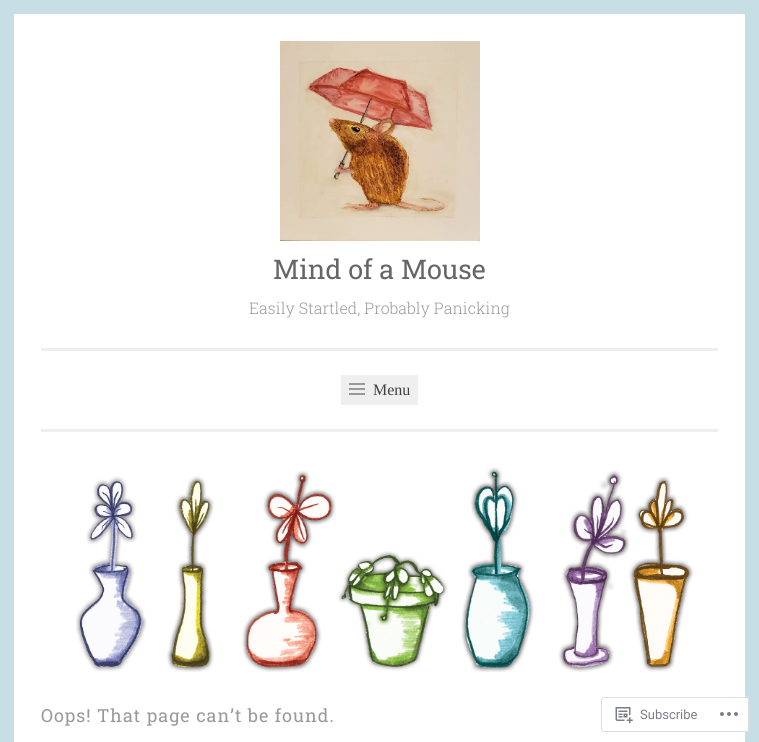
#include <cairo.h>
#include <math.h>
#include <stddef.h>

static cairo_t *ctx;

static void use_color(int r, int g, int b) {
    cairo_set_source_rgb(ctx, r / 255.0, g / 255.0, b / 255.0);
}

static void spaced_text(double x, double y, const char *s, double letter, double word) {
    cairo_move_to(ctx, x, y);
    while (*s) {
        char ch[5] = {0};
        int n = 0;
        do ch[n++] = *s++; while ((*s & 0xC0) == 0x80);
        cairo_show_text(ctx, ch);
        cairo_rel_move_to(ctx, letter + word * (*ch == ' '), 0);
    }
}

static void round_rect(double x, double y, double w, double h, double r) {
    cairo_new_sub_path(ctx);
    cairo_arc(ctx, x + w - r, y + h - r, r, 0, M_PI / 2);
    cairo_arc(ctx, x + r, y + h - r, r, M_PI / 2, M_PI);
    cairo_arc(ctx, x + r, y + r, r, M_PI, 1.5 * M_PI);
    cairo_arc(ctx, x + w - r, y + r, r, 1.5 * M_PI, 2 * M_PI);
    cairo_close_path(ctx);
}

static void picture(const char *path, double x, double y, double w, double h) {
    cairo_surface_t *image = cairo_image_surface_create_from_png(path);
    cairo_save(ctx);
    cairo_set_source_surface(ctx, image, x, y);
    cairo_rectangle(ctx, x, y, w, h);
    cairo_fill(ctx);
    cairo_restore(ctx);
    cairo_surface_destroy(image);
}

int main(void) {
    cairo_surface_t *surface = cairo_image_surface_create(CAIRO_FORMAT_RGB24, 759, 742);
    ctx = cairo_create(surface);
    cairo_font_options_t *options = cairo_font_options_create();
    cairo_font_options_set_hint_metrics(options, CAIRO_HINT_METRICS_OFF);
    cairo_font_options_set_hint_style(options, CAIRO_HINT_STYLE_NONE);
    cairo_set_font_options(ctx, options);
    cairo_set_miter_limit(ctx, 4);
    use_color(200, 222, 229);
    cairo_paint(ctx);
    use_color(255, 255, 255);
    cairo_rectangle(ctx, 14, 14, 731, 728);
    cairo_fill(ctx);
    use_color(238, 238, 238);
    cairo_rectangle(ctx, 41, 429, 677, 3);
    cairo_fill(ctx);
    picture("img1.png", 280, 41, 200, 200);
    cairo_select_font_face(ctx, "Roboto Slab", CAIRO_FONT_SLANT_NORMAL, CAIRO_FONT_WEIGHT_NORMAL);
    cairo_set_font_size(ctx, 27);
    use_color(102, 102, 102);
    cairo_move_to(ctx, 273, 279);
    cairo_show_text(ctx, "Mind of a Mouse");
    cairo_select_font_face(ctx, "Roboto Slab Light", CAIRO_FONT_SLANT_NORMAL, CAIRO_FONT_WEIGHT_NORMAL);
    cairo_set_font_size(ctx, 16);
    use_color(153, 153, 153);
    cairo_move_to(ctx, 249, 314);
    cairo_show_text(ctx, "Easily Startled, Probably Panicking");
    use_color(238, 238, 238);
    cairo_rectangle(ctx, 41, 348, 677, 3);
    cairo_fill(ctx);
    use_color(239, 239, 239);
    cairo_rectangle(ctx, 341, 375, 77, 30);
    cairo_fill(ctx);
    picture("img2.png", 349, 383, 16, 12);
    cairo_select_font_face(ctx, "Liberation Serif", CAIRO_FONT_SLANT_NORMAL, CAIRO_FONT_WEIGHT_NORMAL);
    use_color(64, 64, 64);
    cairo_move_to(ctx, 373, 395);
    cairo_show_text(ctx, "Menu");
    picture("img3.png", 76, 467, 618, 205);
    cairo_select_font_face(ctx, "Roboto Slab", CAIRO_FONT_SLANT_NORMAL, CAIRO_FONT_WEIGHT_NORMAL);
    cairo_set_font_size(ctx, 18);
    use_color(153, 153, 153);
    spaced_text(41, 722, "Oops! That page can’t be found.", 1, 0);
    cairo_set_source_rgba(ctx, 1, 1, 1, 0.98);
    round_rect(601, 697, 148, 35, 3);
    cairo_fill(ctx);
    round_rect(601.5, 697.5, 147, 34, 2.5);
    cairo_set_source_rgba(ctx, 0.863, 0.863, 0.871, 0.98);
    cairo_set_line_width(ctx, 1);
    cairo_stroke(ctx);
    picture("img4.png", 615, 707, 18, 17);
    cairo_select_font_face(ctx, "Roboto", CAIRO_FONT_SLANT_NORMAL, CAIRO_FONT_WEIGHT_NORMAL);
    cairo_set_font_size(ctx, 13);
    use_color(123, 127, 133);
    cairo_move_to(ctx, 640, 719);
    cairo_show_text(ctx, "Subscribe");
    picture("img5.png", 720, 712, 18, 4);
    cairo_surface_write_to_png(surface, "result.png");
    cairo_font_options_destroy(options);
    cairo_destroy(ctx);
    cairo_surface_destroy(surface);
    return 0;
}
